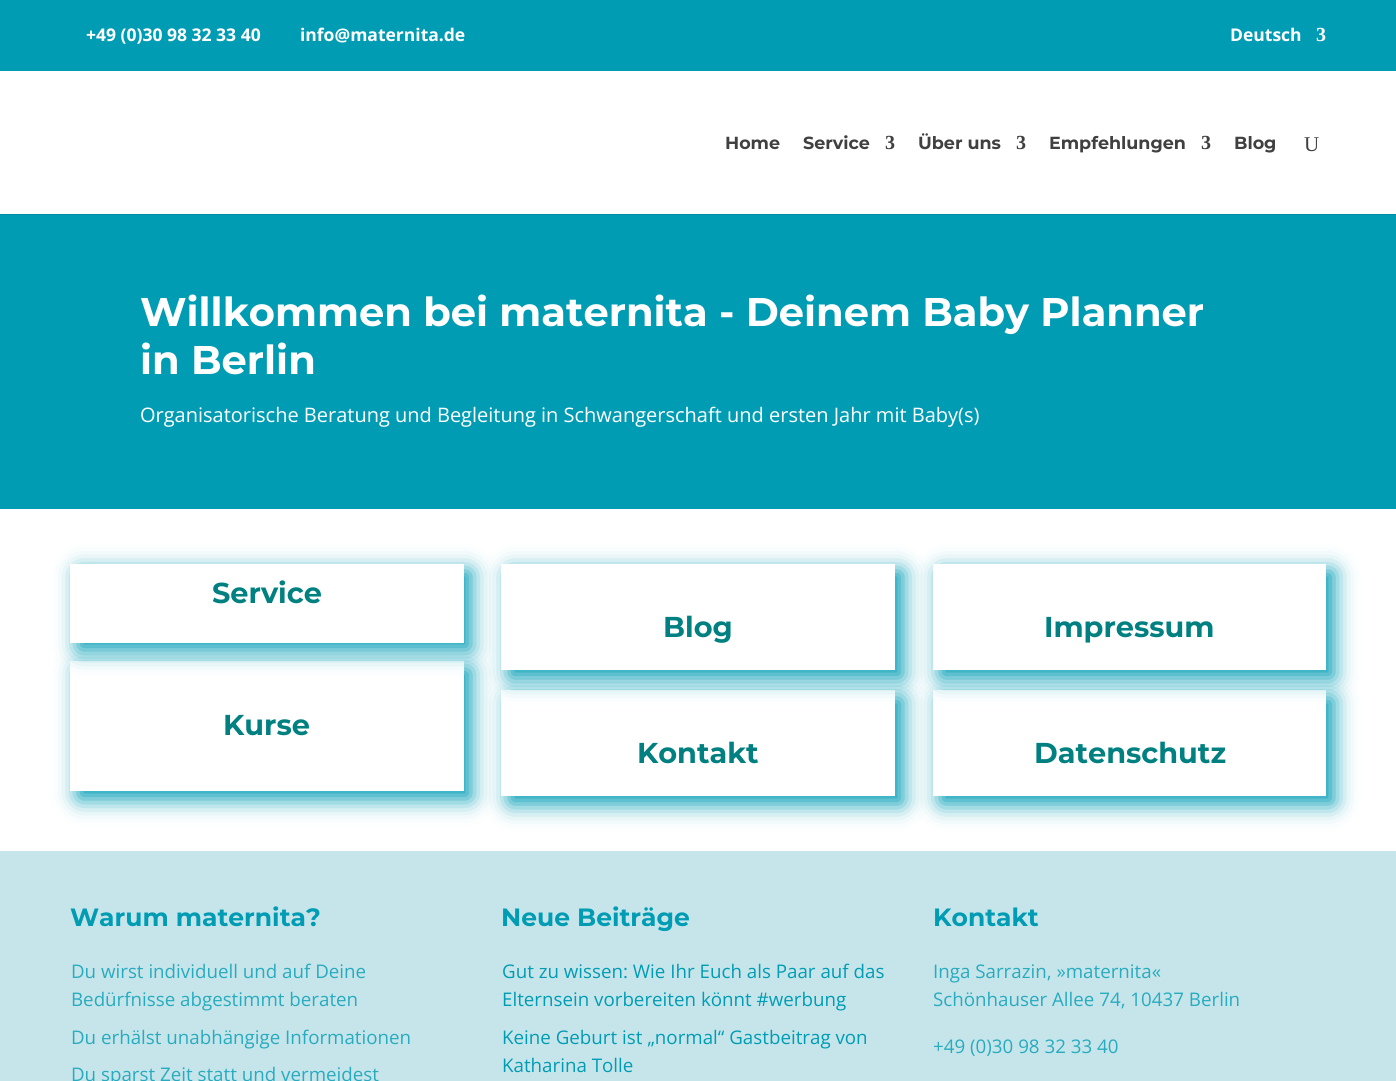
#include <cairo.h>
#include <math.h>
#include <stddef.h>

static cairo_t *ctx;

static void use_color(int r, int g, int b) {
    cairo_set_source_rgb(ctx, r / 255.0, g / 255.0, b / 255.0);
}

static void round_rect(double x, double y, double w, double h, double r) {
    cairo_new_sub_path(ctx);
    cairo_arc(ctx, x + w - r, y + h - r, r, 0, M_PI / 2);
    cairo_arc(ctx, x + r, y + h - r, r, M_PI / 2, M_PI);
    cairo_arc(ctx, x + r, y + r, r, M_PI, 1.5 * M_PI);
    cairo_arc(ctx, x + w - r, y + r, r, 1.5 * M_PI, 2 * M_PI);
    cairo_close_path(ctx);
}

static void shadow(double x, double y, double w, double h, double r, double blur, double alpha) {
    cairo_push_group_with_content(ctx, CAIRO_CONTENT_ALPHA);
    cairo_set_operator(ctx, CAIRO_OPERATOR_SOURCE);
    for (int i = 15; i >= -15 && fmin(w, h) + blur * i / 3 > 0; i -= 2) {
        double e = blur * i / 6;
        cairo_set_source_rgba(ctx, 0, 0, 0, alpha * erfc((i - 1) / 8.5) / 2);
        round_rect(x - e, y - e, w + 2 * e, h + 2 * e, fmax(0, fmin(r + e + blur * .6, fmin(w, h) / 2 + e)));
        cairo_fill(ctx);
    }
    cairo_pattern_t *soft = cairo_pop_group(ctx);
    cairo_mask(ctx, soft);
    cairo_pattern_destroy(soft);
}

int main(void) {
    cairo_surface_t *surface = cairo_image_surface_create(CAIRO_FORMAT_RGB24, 1396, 1081);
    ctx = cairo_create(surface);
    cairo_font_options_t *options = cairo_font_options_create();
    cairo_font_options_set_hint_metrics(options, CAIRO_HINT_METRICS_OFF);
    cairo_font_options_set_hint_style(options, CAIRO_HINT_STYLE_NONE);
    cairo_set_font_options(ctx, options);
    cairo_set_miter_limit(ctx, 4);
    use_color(0, 156, 180);
    cairo_paint(ctx);
    cairo_select_font_face(ctx, "Open Sans", CAIRO_FONT_SLANT_NORMAL, CAIRO_FONT_WEIGHT_BOLD);
    cairo_set_font_size(ctx, 17.5);
    use_color(255, 255, 255);
    cairo_move_to(ctx, 86, 41);
    cairo_show_text(ctx, "+49 (0)30 98 32 33 40");
    cairo_move_to(ctx, 300, 41);
    cairo_show_text(ctx, "info@maternita.de");
    cairo_move_to(ctx, 1230, 41);
    cairo_show_text(ctx, "Deutsch");
    cairo_select_font_face(ctx, "Liberation Serif", CAIRO_FONT_SLANT_NORMAL, CAIRO_FONT_WEIGHT_BOLD);
    cairo_set_font_size(ctx, 20);
    cairo_move_to(ctx, 1316, 41);
    cairo_show_text(ctx, "3");
    use_color(0, 140, 162);
    cairo_rectangle(ctx, 0, 214, 1396, 1);
    cairo_fill(ctx);
    use_color(255, 255, 255);
    cairo_rectangle(ctx, 0, 71, 1396, 143);
    cairo_fill(ctx);
    cairo_select_font_face(ctx, "Montserrat", CAIRO_FONT_SLANT_NORMAL, CAIRO_FONT_WEIGHT_BOLD);
    cairo_set_font_size(ctx, 17.5);
    use_color(64, 64, 64);
    cairo_move_to(ctx, 725, 149);
    cairo_show_text(ctx, "Home");
    cairo_move_to(ctx, 803, 149);
    cairo_show_text(ctx, "Service");
    cairo_select_font_face(ctx, "Liberation Serif", CAIRO_FONT_SLANT_NORMAL, CAIRO_FONT_WEIGHT_BOLD);
    cairo_set_font_size(ctx, 20);
    cairo_move_to(ctx, 885, 149);
    cairo_show_text(ctx, "3");
    cairo_select_font_face(ctx, "Montserrat", CAIRO_FONT_SLANT_NORMAL, CAIRO_FONT_WEIGHT_BOLD);
    cairo_set_font_size(ctx, 17.5);
    cairo_move_to(ctx, 918, 149);
    cairo_show_text(ctx, "Über uns");
    cairo_select_font_face(ctx, "Liberation Serif", CAIRO_FONT_SLANT_NORMAL, CAIRO_FONT_WEIGHT_BOLD);
    cairo_set_font_size(ctx, 20);
    cairo_move_to(ctx, 1016, 149);
    cairo_show_text(ctx, "3");
    cairo_select_font_face(ctx, "Montserrat", CAIRO_FONT_SLANT_NORMAL, CAIRO_FONT_WEIGHT_BOLD);
    cairo_set_font_size(ctx, 17.5);
    cairo_move_to(ctx, 1049, 149);
    cairo_show_text(ctx, "Empfehlungen");
    cairo_select_font_face(ctx, "Liberation Serif", CAIRO_FONT_SLANT_NORMAL, CAIRO_FONT_WEIGHT_BOLD);
    cairo_set_font_size(ctx, 20);
    cairo_move_to(ctx, 1201, 149);
    cairo_show_text(ctx, "3");
    cairo_select_font_face(ctx, "Montserrat", CAIRO_FONT_SLANT_NORMAL, CAIRO_FONT_WEIGHT_BOLD);
    cairo_set_font_size(ctx, 17.5);
    cairo_move_to(ctx, 1234, 149);
    cairo_show_text(ctx, "Blog");
    cairo_select_font_face(ctx, "Liberation Serif", CAIRO_FONT_SLANT_NORMAL, CAIRO_FONT_WEIGHT_NORMAL);
    cairo_set_font_size(ctx, 21);
    cairo_move_to(ctx, 1304, 151);
    cairo_show_text(ctx, "U");
    cairo_select_font_face(ctx, "Montserrat", CAIRO_FONT_SLANT_NORMAL, CAIRO_FONT_WEIGHT_BOLD);
    cairo_set_font_size(ctx, 40);
    use_color(255, 255, 255);
    cairo_move_to(ctx, 140, 326);
    cairo_show_text(ctx, "Willkommen bei maternita - Deinem Baby Planner");
    cairo_move_to(ctx, 140, 374);
    cairo_show_text(ctx, "in Berlin");
    cairo_select_font_face(ctx, "Open Sans", CAIRO_FONT_SLANT_NORMAL, CAIRO_FONT_WEIGHT_NORMAL);
    cairo_set_font_size(ctx, 20);
    cairo_move_to(ctx, 140, 422);
    cairo_show_text(ctx, "Organisatorische Beratung und Begleitung in Schwangerschaft und ersten Jahr mit Baby(s)");
    cairo_rectangle(ctx, 0, 509, 1396, 342);
    cairo_fill(ctx);
    cairo_save(ctx);
    cairo_set_fill_rule(ctx, CAIRO_FILL_RULE_EVEN_ODD);
    cairo_new_path(ctx);
    cairo_move_to(ctx, 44, 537);
    cairo_line_to(ctx, 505, 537);
    cairo_line_to(ctx, 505, 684);
    cairo_line_to(ctx, 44, 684);
    cairo_close_path(ctx);
    cairo_move_to(ctx, 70, 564);
    cairo_line_to(ctx, 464, 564);
    cairo_line_to(ctx, 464, 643);
    cairo_line_to(ctx, 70, 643);
    cairo_close_path(ctx);
    cairo_clip(ctx);
    use_color(0, 156, 180);
    shadow(78, 571, 393, 79, 0, 11, 1);
    cairo_restore(ctx);
    cairo_select_font_face(ctx, "Montserrat", CAIRO_FONT_SLANT_NORMAL, CAIRO_FONT_WEIGHT_BOLD);
    cairo_set_font_size(ctx, 28.75);
    use_color(0, 128, 128);
    cairo_move_to(ctx, 212, 603);
    cairo_show_text(ctx, "Service");
    cairo_save(ctx);
    cairo_set_fill_rule(ctx, CAIRO_FILL_RULE_EVEN_ODD);
    cairo_new_path(ctx);
    cairo_move_to(ctx, 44, 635);
    cairo_line_to(ctx, 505, 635);
    cairo_line_to(ctx, 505, 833);
    cairo_line_to(ctx, 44, 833);
    cairo_close_path(ctx);
    cairo_move_to(ctx, 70, 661);
    cairo_line_to(ctx, 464, 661);
    cairo_line_to(ctx, 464, 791);
    cairo_line_to(ctx, 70, 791);
    cairo_close_path(ctx);
    cairo_clip(ctx);
    use_color(0, 156, 180);
    shadow(78, 669, 393, 130, 0, 11, 1);
    cairo_restore(ctx);
    cairo_move_to(ctx, 223, 735);
    cairo_show_text(ctx, "Kurse");
    cairo_save(ctx);
    cairo_set_fill_rule(ctx, CAIRO_FILL_RULE_EVEN_ODD);
    cairo_new_path(ctx);
    cairo_move_to(ctx, 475, 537);
    cairo_line_to(ctx, 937, 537);
    cairo_line_to(ctx, 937, 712);
    cairo_line_to(ctx, 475, 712);
    cairo_close_path(ctx);
    cairo_move_to(ctx, 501, 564);
    cairo_line_to(ctx, 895, 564);
    cairo_line_to(ctx, 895, 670);
    cairo_line_to(ctx, 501, 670);
    cairo_close_path(ctx);
    cairo_clip(ctx);
    use_color(0, 156, 180);
    shadow(509, 571, 394, 107, 0, 11, 1);
    cairo_restore(ctx);
    cairo_move_to(ctx, 663, 637);
    cairo_show_text(ctx, "Blog");
    cairo_save(ctx);
    cairo_set_fill_rule(ctx, CAIRO_FILL_RULE_EVEN_ODD);
    cairo_new_path(ctx);
    cairo_move_to(ctx, 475, 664);
    cairo_line_to(ctx, 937, 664);
    cairo_line_to(ctx, 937, 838);
    cairo_line_to(ctx, 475, 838);
    cairo_close_path(ctx);
    cairo_move_to(ctx, 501, 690);
    cairo_line_to(ctx, 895, 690);
    cairo_line_to(ctx, 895, 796);
    cairo_line_to(ctx, 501, 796);
    cairo_close_path(ctx);
    cairo_clip(ctx);
    use_color(0, 156, 180);
    shadow(509, 698, 394, 106, 0, 11, 1);
    cairo_restore(ctx);
    cairo_move_to(ctx, 637, 763);
    cairo_show_text(ctx, "Kontakt");
    cairo_save(ctx);
    cairo_set_fill_rule(ctx, CAIRO_FILL_RULE_EVEN_ODD);
    cairo_new_path(ctx);
    cairo_move_to(ctx, 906, 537);
    cairo_line_to(ctx, 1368, 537);
    cairo_line_to(ctx, 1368, 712);
    cairo_line_to(ctx, 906, 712);
    cairo_close_path(ctx);
    cairo_move_to(ctx, 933, 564);
    cairo_line_to(ctx, 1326, 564);
    cairo_line_to(ctx, 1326, 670);
    cairo_line_to(ctx, 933, 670);
    cairo_close_path(ctx);
    cairo_clip(ctx);
    use_color(0, 156, 180);
    shadow(940, 571, 394, 107, 0, 11, 1);
    cairo_restore(ctx);
    cairo_move_to(ctx, 1044, 637);
    cairo_show_text(ctx, "Impressum");
    cairo_save(ctx);
    cairo_set_fill_rule(ctx, CAIRO_FILL_RULE_EVEN_ODD);
    cairo_new_path(ctx);
    cairo_move_to(ctx, 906, 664);
    cairo_line_to(ctx, 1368, 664);
    cairo_line_to(ctx, 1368, 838);
    cairo_line_to(ctx, 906, 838);
    cairo_close_path(ctx);
    cairo_move_to(ctx, 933, 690);
    cairo_line_to(ctx, 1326, 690);
    cairo_line_to(ctx, 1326, 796);
    cairo_line_to(ctx, 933, 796);
    cairo_close_path(ctx);
    cairo_clip(ctx);
    use_color(0, 156, 180);
    shadow(940, 698, 394, 106, 0, 11, 1);
    cairo_restore(ctx);
    cairo_move_to(ctx, 1034, 763);
    cairo_show_text(ctx, "Datenschutz");
    use_color(198, 229, 234);
    cairo_rectangle(ctx, 0, 851, 1396, 230);
    cairo_fill(ctx);
    cairo_set_font_size(ctx, 25);
    use_color(0, 156, 180);
    cairo_move_to(ctx, 70, 926);
    cairo_show_text(ctx, "Warum maternita?");
    cairo_select_font_face(ctx, "Open Sans", CAIRO_FONT_SLANT_NORMAL, CAIRO_FONT_WEIGHT_NORMAL);
    cairo_set_font_size(ctx, 18.75);
    use_color(40, 171, 191);
    cairo_move_to(ctx, 71, 978);
    cairo_show_text(ctx, "Du wirst individuell und auf Deine");
    cairo_move_to(ctx, 71, 1006);
    cairo_show_text(ctx, "Bedürfnisse abgestimmt beraten");
    cairo_move_to(ctx, 71, 1044);
    cairo_show_text(ctx, "Du erhälst unabhängige Informationen");
    cairo_move_to(ctx, 71, 1081);
    cairo_show_text(ctx, "Du sparst Zeit statt und vermeidest");
    cairo_select_font_face(ctx, "Montserrat", CAIRO_FONT_SLANT_NORMAL, CAIRO_FONT_WEIGHT_BOLD);
    cairo_set_font_size(ctx, 25);
    use_color(0, 156, 180);
    cairo_move_to(ctx, 501, 926);
    cairo_show_text(ctx, "Neue Beiträge");
    cairo_select_font_face(ctx, "Open Sans", CAIRO_FONT_SLANT_NORMAL, CAIRO_FONT_WEIGHT_NORMAL);
    cairo_set_font_size(ctx, 18.75);
    cairo_move_to(ctx, 502, 978);
    cairo_show_text(ctx, "Gut zu wissen: Wie Ihr Euch als Paar auf das");
    cairo_move_to(ctx, 502, 1006);
    cairo_show_text(ctx, "Elternsein vorbereiten könnt #werbung");
    cairo_move_to(ctx, 502, 1044);
    cairo_show_text(ctx, "Keine Geburt ist „normal“ Gastbeitrag von");
    cairo_move_to(ctx, 502, 1072);
    cairo_show_text(ctx, "Katharina Tolle");
    cairo_select_font_face(ctx, "Montserrat", CAIRO_FONT_SLANT_NORMAL, CAIRO_FONT_WEIGHT_BOLD);
    cairo_set_font_size(ctx, 25);
    cairo_move_to(ctx, 933, 926);
    cairo_show_text(ctx, "Kontakt");
    cairo_select_font_face(ctx, "Open Sans", CAIRO_FONT_SLANT_NORMAL, CAIRO_FONT_WEIGHT_NORMAL);
    cairo_set_font_size(ctx, 18.75);
    use_color(40, 171, 191);
    cairo_move_to(ctx, 933, 978);
    cairo_show_text(ctx, "Inga Sarrazin, »maternita«");
    cairo_move_to(ctx, 933, 1006);
    cairo_show_text(ctx, "Schönhauser Allee 74, 10437 Berlin");
    cairo_move_to(ctx, 933, 1053);
    cairo_show_text(ctx, "+49 (0)30 98 32 33 40");
    cairo_surface_write_to_png(surface, "result.png");
    cairo_font_options_destroy(options);
    cairo_destroy(ctx);
    cairo_surface_destroy(surface);
    return 0;
}
